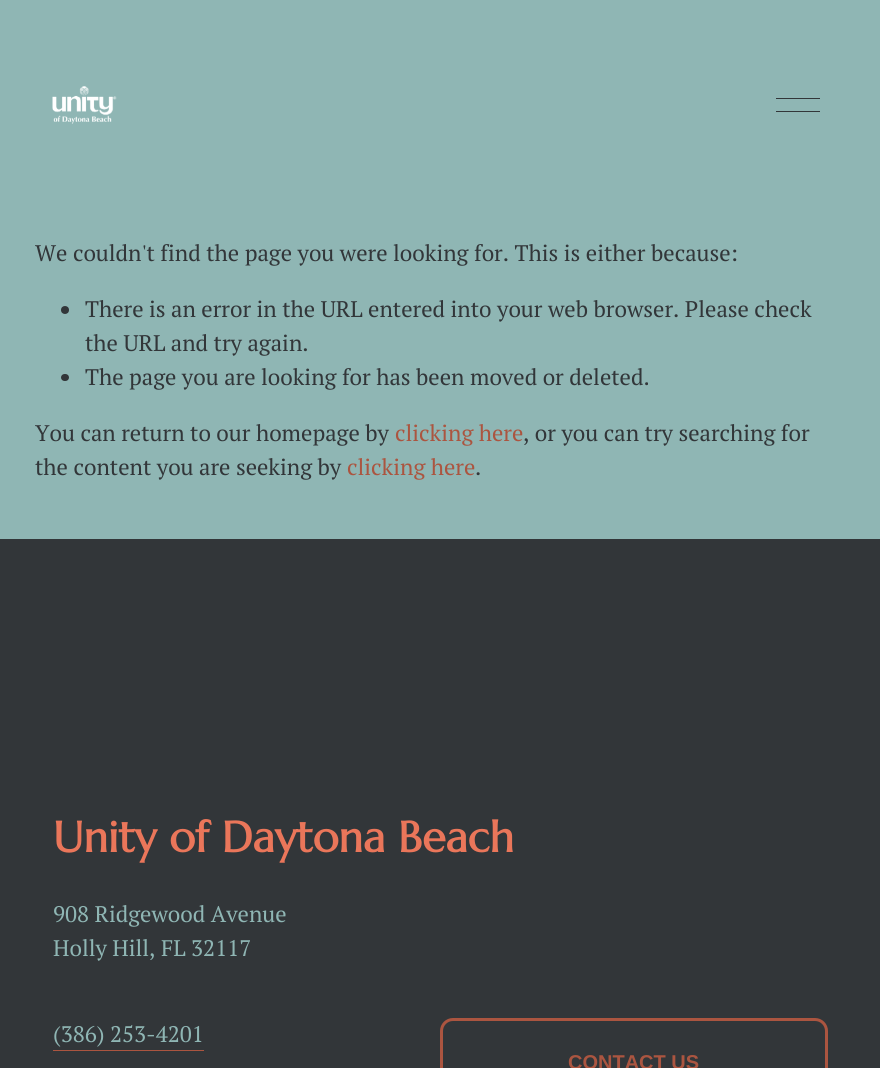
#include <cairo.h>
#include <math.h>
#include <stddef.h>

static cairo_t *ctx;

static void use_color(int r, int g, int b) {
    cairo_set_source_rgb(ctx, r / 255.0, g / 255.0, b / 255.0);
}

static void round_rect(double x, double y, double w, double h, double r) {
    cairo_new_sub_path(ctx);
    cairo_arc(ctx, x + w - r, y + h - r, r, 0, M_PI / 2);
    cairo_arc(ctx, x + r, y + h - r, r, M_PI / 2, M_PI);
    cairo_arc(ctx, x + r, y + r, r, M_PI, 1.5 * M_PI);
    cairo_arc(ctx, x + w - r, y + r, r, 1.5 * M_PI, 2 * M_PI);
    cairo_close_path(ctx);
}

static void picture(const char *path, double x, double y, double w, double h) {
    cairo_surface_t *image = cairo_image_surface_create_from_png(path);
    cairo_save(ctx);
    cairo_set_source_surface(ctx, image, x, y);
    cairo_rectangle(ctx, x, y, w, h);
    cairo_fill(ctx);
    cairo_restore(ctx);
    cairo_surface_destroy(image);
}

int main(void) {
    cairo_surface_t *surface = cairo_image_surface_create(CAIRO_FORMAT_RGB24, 880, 1068);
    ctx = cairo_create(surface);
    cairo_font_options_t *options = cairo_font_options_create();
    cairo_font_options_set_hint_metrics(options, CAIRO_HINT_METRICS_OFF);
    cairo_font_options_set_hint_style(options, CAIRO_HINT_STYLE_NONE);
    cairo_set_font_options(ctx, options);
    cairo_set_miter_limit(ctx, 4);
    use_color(143, 182, 180);
    cairo_paint(ctx);
    picture("img1.png", 52, 86, 65, 38);
    use_color(50, 54, 57);
    cairo_rectangle(ctx, 776, 98, 44, 1);
    cairo_fill(ctx);
    cairo_rectangle(ctx, 776, 111, 44, 1);
    cairo_fill(ctx);
    cairo_select_font_face(ctx, "PT Serif", CAIRO_FONT_SLANT_NORMAL, CAIRO_FONT_WEIGHT_NORMAL);
    cairo_set_font_size(ctx, 22.55);
    cairo_move_to(ctx, 35, 261);
    cairo_show_text(ctx, "We couldn't find the page you were looking for. This is either because:");
    cairo_new_path(ctx);
    cairo_arc(ctx, 65, 310, 4, 0, 2 * M_PI);
    cairo_fill(ctx);
    cairo_move_to(ctx, 85, 317);
    cairo_show_text(ctx, "There is an error in the URL entered into your web browser. Please check");
    cairo_move_to(ctx, 85, 351);
    cairo_show_text(ctx, "the URL and try again.");
    round_rect(61, 374, 8, 7, 3.5);
    cairo_fill(ctx);
    cairo_move_to(ctx, 85, 385);
    cairo_show_text(ctx, "The page you are looking for has been moved or deleted.");
    cairo_move_to(ctx, 35, 441);
    cairo_show_text(ctx, "You can return to our homepage by");
    use_color(171, 85, 64);
    cairo_move_to(ctx, 395, 441);
    cairo_show_text(ctx, "clicking here");
    use_color(50, 54, 57);
    cairo_move_to(ctx, 523, 441);
    cairo_show_text(ctx, ", or you can try searching for");
    cairo_move_to(ctx, 35, 475);
    cairo_show_text(ctx, "the content you are seeking by");
    use_color(171, 85, 64);
    cairo_move_to(ctx, 347, 475);
    cairo_show_text(ctx, "clicking here");
    use_color(50, 54, 57);
    cairo_move_to(ctx, 475, 475);
    cairo_show_text(ctx, ".");
    cairo_rectangle(ctx, 0, 539, 880, 529);
    cairo_fill(ctx);
    cairo_select_font_face(ctx, "Marcellus", CAIRO_FONT_SLANT_NORMAL, CAIRO_FONT_WEIGHT_BOLD);
    cairo_set_font_size(ctx, 43);
    use_color(234, 118, 90);
    cairo_move_to(ctx, 53, 852);
    cairo_show_text(ctx, "Unity of Daytona Beach");
    cairo_select_font_face(ctx, "PT Serif", CAIRO_FONT_SLANT_NORMAL, CAIRO_FONT_WEIGHT_NORMAL);
    cairo_set_font_size(ctx, 22.55);
    use_color(143, 182, 180);
    cairo_move_to(ctx, 53, 922);
    cairo_show_text(ctx, "908 Ridgewood Avenue");
    cairo_move_to(ctx, 53, 956);
    cairo_show_text(ctx, "Holly Hill, FL 32117");
    use_color(171, 85, 64);
    cairo_rectangle(ctx, 53, 1050, 151, 1);
    cairo_fill(ctx);
    use_color(143, 182, 180);
    cairo_move_to(ctx, 53, 1042);
    cairo_show_text(ctx, "(386) 253-4201");
    round_rect(441.5, 1019.5, 385, 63, 11.5);
    use_color(171, 85, 64);
    cairo_set_line_width(ctx, 3);
    cairo_stroke(ctx);
    cairo_select_font_face(ctx, "Liberation Sans", CAIRO_FONT_SLANT_NORMAL, CAIRO_FONT_WEIGHT_BOLD);
    cairo_set_font_size(ctx, 20);
    cairo_move_to(ctx, 568, 1069);
    cairo_show_text(ctx, "CONTACT US");
    cairo_surface_write_to_png(surface, "result.png");
    cairo_font_options_destroy(options);
    cairo_destroy(ctx);
    cairo_surface_destroy(surface);
    return 0;
}
